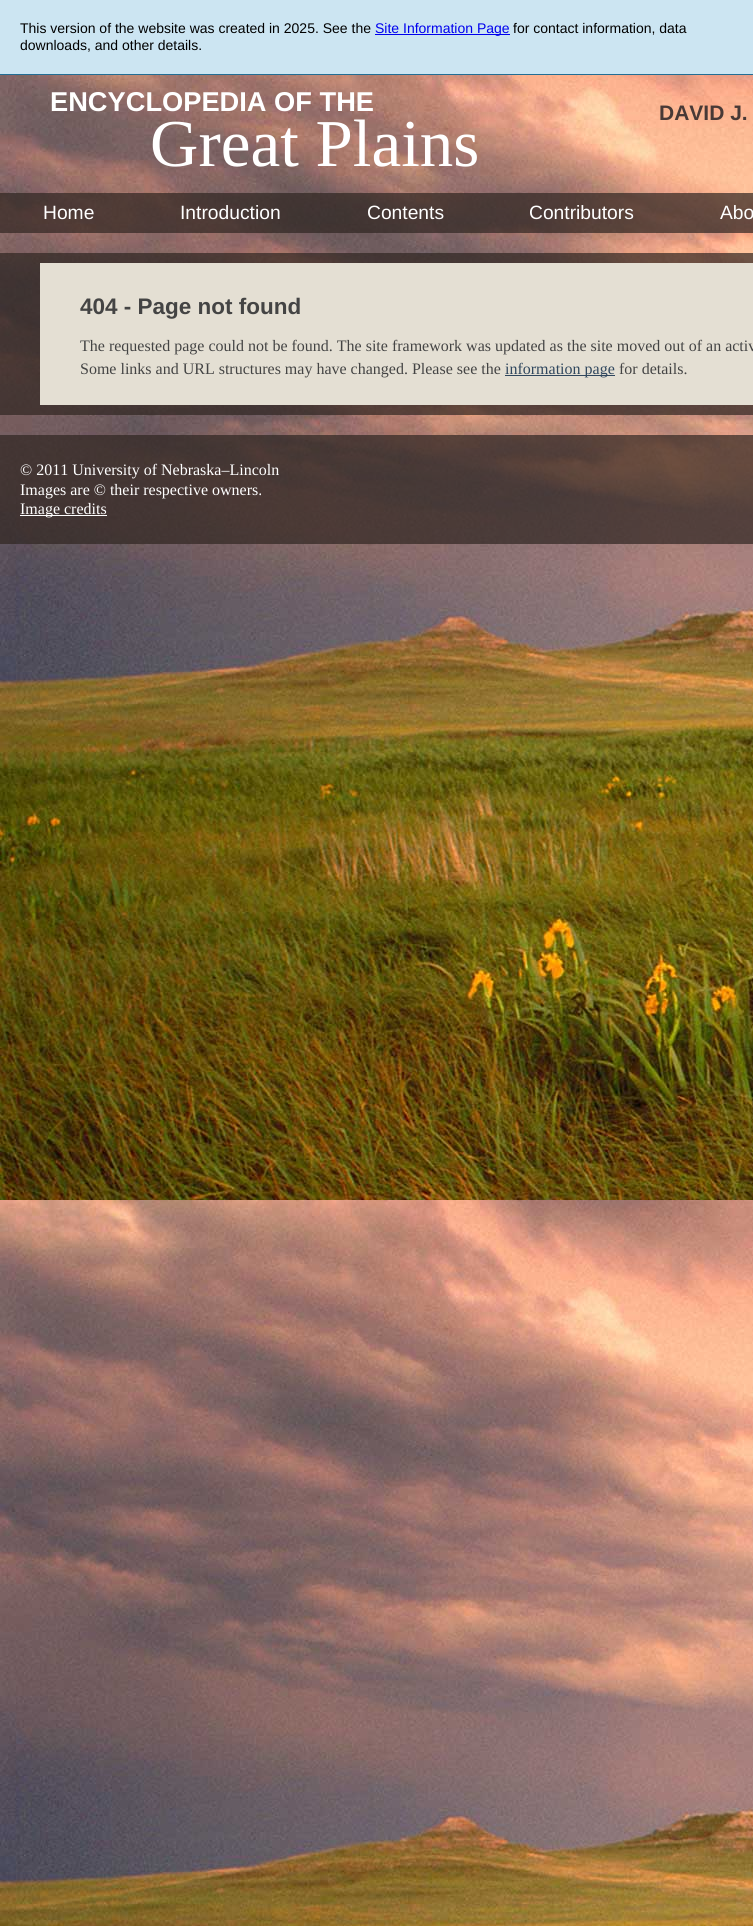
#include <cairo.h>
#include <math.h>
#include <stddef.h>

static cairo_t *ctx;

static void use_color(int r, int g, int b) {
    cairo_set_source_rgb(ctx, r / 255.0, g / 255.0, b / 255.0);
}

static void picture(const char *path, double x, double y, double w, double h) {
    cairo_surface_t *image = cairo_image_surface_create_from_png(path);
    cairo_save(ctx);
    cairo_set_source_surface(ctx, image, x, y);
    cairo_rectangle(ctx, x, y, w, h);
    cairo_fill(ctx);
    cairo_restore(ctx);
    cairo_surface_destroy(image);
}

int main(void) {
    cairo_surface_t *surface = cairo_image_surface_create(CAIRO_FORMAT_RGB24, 753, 1926);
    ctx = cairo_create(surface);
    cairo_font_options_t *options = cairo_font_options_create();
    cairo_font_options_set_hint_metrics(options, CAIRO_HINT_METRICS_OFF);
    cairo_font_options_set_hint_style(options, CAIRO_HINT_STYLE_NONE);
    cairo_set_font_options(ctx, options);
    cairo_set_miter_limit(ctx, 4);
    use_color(255, 255, 255);
    cairo_paint(ctx);
    picture("img1.png", 0, 75, 753, 1851);
    use_color(204, 229, 242);
    cairo_rectangle(ctx, 0, 0, 753, 74);
    cairo_fill(ctx);
    use_color(34, 110, 149);
    cairo_rectangle(ctx, 0, 74, 753, 1);
    cairo_fill(ctx);
    cairo_select_font_face(ctx, "Liberation Sans", CAIRO_FONT_SLANT_NORMAL, CAIRO_FONT_WEIGHT_NORMAL);
    cairo_set_font_size(ctx, 14);
    use_color(0, 0, 0);
    cairo_move_to(ctx, 20, 33);
    cairo_show_text(ctx, "This version of the website was created in 2025. See the");
    use_color(0, 0, 238);
    cairo_rectangle(ctx, 375, 34, 135, 1);
    cairo_fill(ctx);
    cairo_move_to(ctx, 375, 33);
    cairo_show_text(ctx, "Site Information Page");
    use_color(0, 0, 0);
    cairo_move_to(ctx, 513, 33);
    cairo_show_text(ctx, "for contact information, data");
    cairo_move_to(ctx, 20, 50);
    cairo_show_text(ctx, "downloads, and other details.");
    cairo_select_font_face(ctx, "Liberation Sans", CAIRO_FONT_SLANT_NORMAL, CAIRO_FONT_WEIGHT_BOLD);
    cairo_set_font_size(ctx, 27.25);
    use_color(255, 255, 255);
    cairo_move_to(ctx, 50, 111);
    cairo_show_text(ctx, "ENCYCLOPEDIA OF THE");
    cairo_select_font_face(ctx, "Liberation Serif", CAIRO_FONT_SLANT_NORMAL, CAIRO_FONT_WEIGHT_NORMAL);
    cairo_set_font_size(ctx, 67);
    cairo_move_to(ctx, 150, 166);
    cairo_show_text(ctx, "Great Plains");
    cairo_select_font_face(ctx, "Liberation Sans", CAIRO_FONT_SLANT_NORMAL, CAIRO_FONT_WEIGHT_BOLD);
    cairo_set_font_size(ctx, 21);
    use_color(72, 57, 54);
    cairo_move_to(ctx, 659, 120);
    cairo_show_text(ctx, "DAVID J.");
    cairo_set_source_rgba(ctx, 0.188, 0.149, 0.133, 0.7);
    cairo_rectangle(ctx, 0, 193, 753, 40);
    cairo_fill(ctx);
    cairo_select_font_face(ctx, "Liberation Sans", CAIRO_FONT_SLANT_NORMAL, CAIRO_FONT_WEIGHT_NORMAL);
    cairo_set_font_size(ctx, 19.25);
    use_color(255, 255, 255);
    cairo_move_to(ctx, 43, 219);
    cairo_show_text(ctx, "Home");
    cairo_move_to(ctx, 180, 219);
    cairo_show_text(ctx, "Introduction");
    cairo_move_to(ctx, 367, 219);
    cairo_show_text(ctx, "Contents");
    cairo_move_to(ctx, 529, 219);
    cairo_show_text(ctx, "Contributors");
    cairo_move_to(ctx, 720, 219);
    cairo_show_text(ctx, "Abo");
    cairo_set_source_rgba(ctx, 0.188, 0.149, 0.133, 0.7);
    cairo_rectangle(ctx, 0, 253, 753, 162);
    cairo_fill(ctx);
    use_color(228, 223, 211);
    cairo_rectangle(ctx, 40, 263, 713, 142);
    cairo_fill(ctx);
    cairo_select_font_face(ctx, "Liberation Sans", CAIRO_FONT_SLANT_NORMAL, CAIRO_FONT_WEIGHT_BOLD);
    cairo_set_font_size(ctx, 22.5);
    use_color(68, 68, 68);
    cairo_move_to(ctx, 80, 314);
    cairo_show_text(ctx, "404 - Page not found");
    cairo_select_font_face(ctx, "Liberation Serif", CAIRO_FONT_SLANT_NORMAL, CAIRO_FONT_WEIGHT_NORMAL);
    cairo_set_font_size(ctx, 16);
    cairo_move_to(ctx, 80, 351);
    cairo_show_text(ctx, "The requested page could not be found. The site framework was updated as the site moved out of an activ");
    cairo_move_to(ctx, 80, 374);
    cairo_show_text(ctx, "Some links and URL structures may have changed. Please see the");
    use_color(48, 71, 94);
    cairo_rectangle(ctx, 505, 375, 110, 1);
    cairo_fill(ctx);
    cairo_move_to(ctx, 505, 374);
    cairo_show_text(ctx, "information page");
    use_color(68, 68, 68);
    cairo_move_to(ctx, 619, 374);
    cairo_show_text(ctx, "for details.");
    cairo_set_source_rgba(ctx, 0.188, 0.149, 0.133, 0.7);
    cairo_rectangle(ctx, 0, 435, 753, 109);
    cairo_fill(ctx);
    use_color(255, 255, 255);
    cairo_move_to(ctx, 20, 475);
    cairo_show_text(ctx, "© 2011 University of Nebraska–Lincoln");
    cairo_move_to(ctx, 20, 495);
    cairo_show_text(ctx, "Images are © their respective owners.");
    cairo_rectangle(ctx, 20, 515, 87, 1);
    cairo_fill(ctx);
    cairo_move_to(ctx, 20, 514);
    cairo_show_text(ctx, "Image credits");
    cairo_surface_write_to_png(surface, "result.png");
    cairo_font_options_destroy(options);
    cairo_destroy(ctx);
    cairo_surface_destroy(surface);
    return 0;
}
